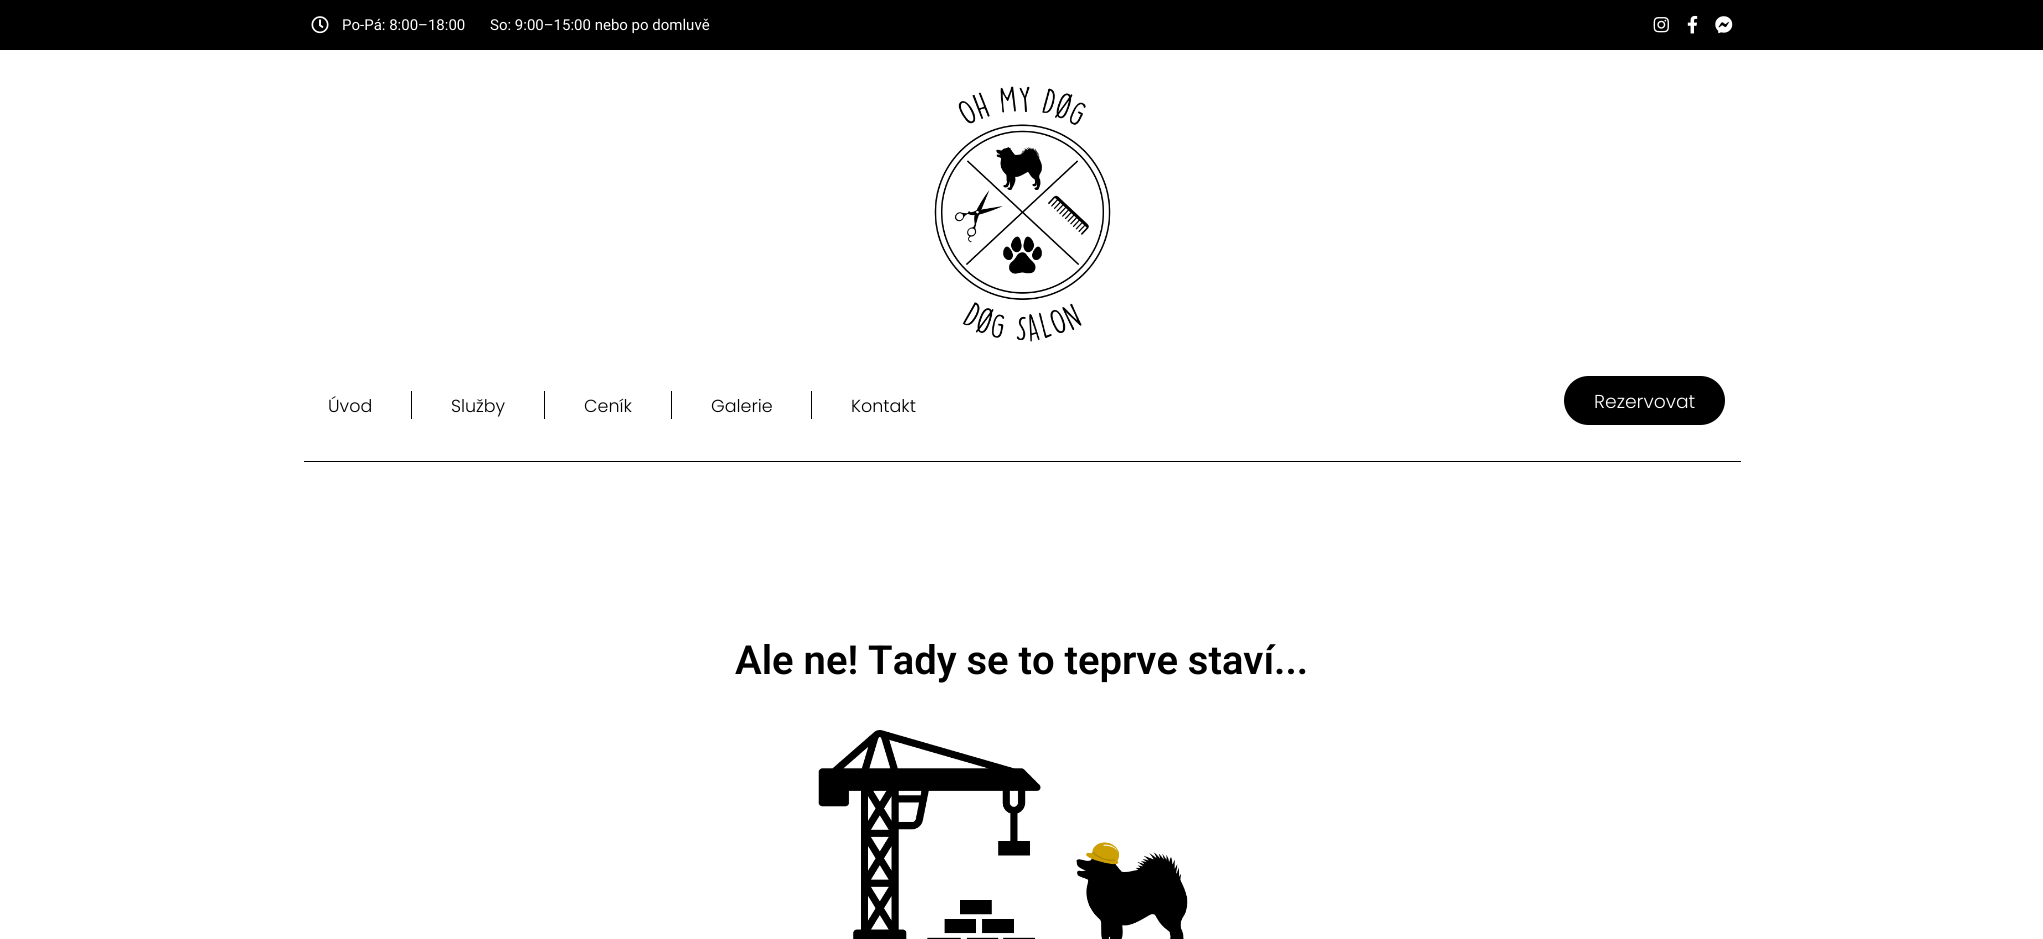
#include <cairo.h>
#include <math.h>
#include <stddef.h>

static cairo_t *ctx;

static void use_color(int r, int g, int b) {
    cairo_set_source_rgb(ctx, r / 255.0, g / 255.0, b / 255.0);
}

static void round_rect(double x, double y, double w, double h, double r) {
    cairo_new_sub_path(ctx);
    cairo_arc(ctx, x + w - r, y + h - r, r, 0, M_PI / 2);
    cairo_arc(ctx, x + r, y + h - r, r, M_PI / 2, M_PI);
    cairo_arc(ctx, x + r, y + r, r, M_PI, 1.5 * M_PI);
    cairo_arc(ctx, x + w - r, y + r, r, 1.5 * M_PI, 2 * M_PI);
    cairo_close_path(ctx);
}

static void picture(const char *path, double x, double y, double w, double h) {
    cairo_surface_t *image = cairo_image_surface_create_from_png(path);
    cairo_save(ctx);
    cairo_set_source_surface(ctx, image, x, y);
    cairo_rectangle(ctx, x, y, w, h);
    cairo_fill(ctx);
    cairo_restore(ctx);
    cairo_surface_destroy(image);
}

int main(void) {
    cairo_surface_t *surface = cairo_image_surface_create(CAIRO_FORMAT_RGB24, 2043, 939);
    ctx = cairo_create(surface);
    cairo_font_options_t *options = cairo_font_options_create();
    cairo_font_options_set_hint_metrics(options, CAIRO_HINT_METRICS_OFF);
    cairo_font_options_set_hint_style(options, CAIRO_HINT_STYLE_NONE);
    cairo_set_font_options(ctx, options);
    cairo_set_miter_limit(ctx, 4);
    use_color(255, 255, 255);
    cairo_paint(ctx);
    use_color(0, 0, 0);
    cairo_rectangle(ctx, 0, 0, 2043, 50);
    cairo_fill(ctx);
    picture("img1.png", 311, 16, 18, 18);
    cairo_select_font_face(ctx, "Roboto", CAIRO_FONT_SLANT_NORMAL, CAIRO_FONT_WEIGHT_NORMAL);
    cairo_set_font_size(ctx, 15);
    use_color(255, 255, 255);
    cairo_move_to(ctx, 342, 30);
    cairo_show_text(ctx, "Po-Pá: 8:00–18:00");
    cairo_move_to(ctx, 490, 30);
    cairo_show_text(ctx, "So: 9:00–15:00 nebo po domluvě");
    picture("img2.png", 1653, 17, 16, 16);
    picture("img3.png", 1687, 15, 11, 19);
    picture("img4.png", 1715, 16, 18, 18);
    picture("img5.png", 934, 86, 177, 256);
    cairo_select_font_face(ctx, "Poppins Light", CAIRO_FONT_SLANT_NORMAL, CAIRO_FONT_WEIGHT_NORMAL);
    cairo_set_font_size(ctx, 17.5);
    use_color(0, 0, 0);
    cairo_move_to(ctx, 328, 412);
    cairo_show_text(ctx, "Úvod");
    cairo_rectangle(ctx, 411, 391, 1, 28);
    cairo_fill(ctx);
    cairo_move_to(ctx, 451, 412);
    cairo_show_text(ctx, "Služby");
    cairo_rectangle(ctx, 544, 391, 1, 28);
    cairo_fill(ctx);
    cairo_move_to(ctx, 584, 412);
    cairo_show_text(ctx, "Ceník");
    cairo_rectangle(ctx, 671, 391, 1, 28);
    cairo_fill(ctx);
    cairo_move_to(ctx, 711, 412);
    cairo_show_text(ctx, "Galerie");
    cairo_rectangle(ctx, 811, 391, 1, 28);
    cairo_fill(ctx);
    cairo_move_to(ctx, 851, 412);
    cairo_show_text(ctx, "Kontakt");
    round_rect(1564, 376, 161, 49, 24.5);
    cairo_fill(ctx);
    cairo_set_font_size(ctx, 18.75);
    use_color(255, 255, 255);
    cairo_move_to(ctx, 1594, 408);
    cairo_show_text(ctx, "Rezervovat");
    use_color(0, 0, 0);
    cairo_rectangle(ctx, 304, 461, 1437, 1);
    cairo_fill(ctx);
    cairo_select_font_face(ctx, "Roboto SemiBold", CAIRO_FONT_SLANT_NORMAL, CAIRO_FONT_WEIGHT_NORMAL);
    cairo_set_font_size(ctx, 40);
    cairo_move_to(ctx, 735, 674);
    cairo_show_text(ctx, "Ale ne! Tady se to teprve staví...");
    picture("img6.png", 818, 730, 370, 209);
    cairo_surface_write_to_png(surface, "result.png");
    cairo_font_options_destroy(options);
    cairo_destroy(ctx);
    cairo_surface_destroy(surface);
    return 0;
}
